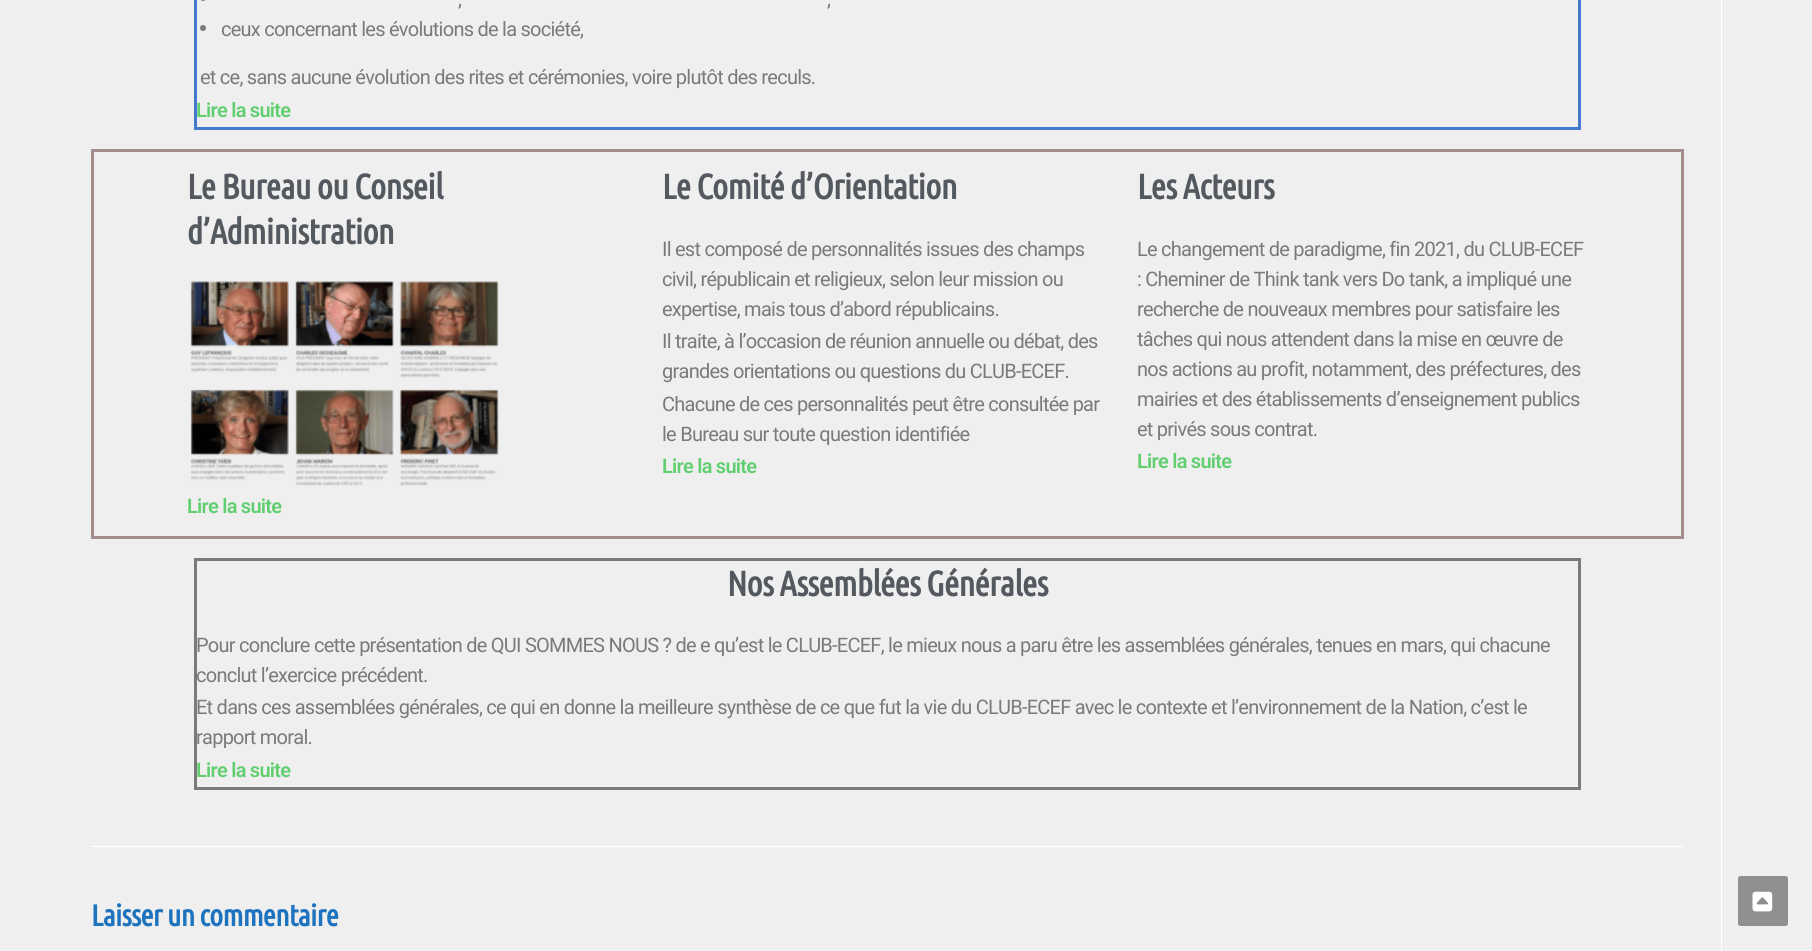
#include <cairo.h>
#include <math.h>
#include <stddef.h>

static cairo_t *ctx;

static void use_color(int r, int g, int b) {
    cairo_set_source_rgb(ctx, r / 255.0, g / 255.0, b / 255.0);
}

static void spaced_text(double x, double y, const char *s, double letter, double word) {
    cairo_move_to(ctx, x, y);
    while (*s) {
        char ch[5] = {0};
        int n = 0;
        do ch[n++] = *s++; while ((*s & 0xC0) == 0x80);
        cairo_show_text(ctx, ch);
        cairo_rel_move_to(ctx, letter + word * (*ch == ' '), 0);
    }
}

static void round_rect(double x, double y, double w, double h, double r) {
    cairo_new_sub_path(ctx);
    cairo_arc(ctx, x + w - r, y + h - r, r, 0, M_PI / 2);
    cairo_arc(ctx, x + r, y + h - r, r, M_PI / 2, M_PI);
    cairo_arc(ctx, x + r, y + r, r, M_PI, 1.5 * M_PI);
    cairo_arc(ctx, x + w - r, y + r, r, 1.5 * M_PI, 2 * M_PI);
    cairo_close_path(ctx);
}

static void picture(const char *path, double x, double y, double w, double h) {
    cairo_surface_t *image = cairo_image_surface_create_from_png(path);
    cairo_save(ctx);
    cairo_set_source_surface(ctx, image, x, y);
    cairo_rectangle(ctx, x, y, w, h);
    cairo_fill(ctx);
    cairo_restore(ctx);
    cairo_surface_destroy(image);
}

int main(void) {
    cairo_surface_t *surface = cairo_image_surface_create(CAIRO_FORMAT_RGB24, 1812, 951);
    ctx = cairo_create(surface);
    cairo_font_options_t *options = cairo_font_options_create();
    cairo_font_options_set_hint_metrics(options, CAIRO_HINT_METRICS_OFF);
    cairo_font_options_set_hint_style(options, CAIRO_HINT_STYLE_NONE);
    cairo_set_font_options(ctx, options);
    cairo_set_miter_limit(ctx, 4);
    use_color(239, 239, 239);
    cairo_paint(ctx);
    use_color(255, 255, 255);
    cairo_rectangle(ctx, 1721, 0, 1, 951);
    cairo_fill(ctx);
    cairo_rectangle(ctx, 195.5, -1.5, 1384, 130);
    use_color(68, 121, 205);
    cairo_set_line_width(ctx, 3);
    cairo_stroke(ctx);
    use_color(122, 122, 122);
    round_rect(200, -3, 6, 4, 3);
    cairo_fill(ctx);
    cairo_select_font_face(ctx, "Roboto", CAIRO_FONT_SLANT_NORMAL, CAIRO_FONT_WEIGHT_NORMAL);
    cairo_set_font_size(ctx, 20);
    spaced_text(458, 6, ",", -0.75, 0);
    spaced_text(827, 6, ",", -0.75, 0);
    cairo_new_path(ctx);
    cairo_arc(ctx, 203, 28, 3, 0, 2 * M_PI);
    cairo_fill(ctx);
    spaced_text(221, 36, "ceux concernant les évolutions de la société,", -0.75, 0);
    spaced_text(200, 84, "et ce, sans aucune évolution des rites et cérémonies, voire plutôt des reculs.", -0.75, 0);
    cairo_select_font_face(ctx, "Roboto SemiBold", CAIRO_FONT_SLANT_NORMAL, CAIRO_FONT_WEIGHT_NORMAL);
    use_color(97, 206, 112);
    spaced_text(196, 117, "Lire la suite", -0.75, 0);
    cairo_rectangle(ctx, 92.5, 150.5, 1590, 387);
    use_color(165, 141, 141);
    cairo_stroke(ctx);
    cairo_select_font_face(ctx, "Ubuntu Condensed", CAIRO_FONT_SLANT_NORMAL, CAIRO_FONT_WEIGHT_BOLD);
    cairo_set_font_size(ctx, 35);
    use_color(84, 89, 95);
    spaced_text(187, 199, "Le Bureau ou Conseil", -0.75, 0);
    spaced_text(187, 244, "d’Administration", -0.75, 0);
    picture("img1.png", 190, 281, 309, 205);
    cairo_select_font_face(ctx, "Roboto SemiBold", CAIRO_FONT_SLANT_NORMAL, CAIRO_FONT_WEIGHT_NORMAL);
    cairo_set_font_size(ctx, 20);
    use_color(97, 206, 112);
    spaced_text(187, 513, "Lire la suite", -0.75, 0);
    cairo_select_font_face(ctx, "Ubuntu Condensed", CAIRO_FONT_SLANT_NORMAL, CAIRO_FONT_WEIGHT_BOLD);
    cairo_set_font_size(ctx, 35);
    use_color(84, 89, 95);
    spaced_text(662, 199, "Le Comité d’Orientation", -0.75, 0);
    cairo_select_font_face(ctx, "Roboto", CAIRO_FONT_SLANT_NORMAL, CAIRO_FONT_WEIGHT_NORMAL);
    cairo_set_font_size(ctx, 20);
    use_color(122, 122, 122);
    spaced_text(662, 256, "Il est composé de personnalités issues des champs", -0.75, 0);
    spaced_text(662, 286, "civil, républicain et religieux, selon leur mission ou", -0.75, 0);
    spaced_text(662, 316, "expertise, mais tous d’abord républicains.", -0.75, 0);
    spaced_text(662, 348, "Il traite, à l’occasion de réunion annuelle ou débat, des", -0.75, 0);
    spaced_text(662, 378, "grandes orientations ou questions du CLUB-ECEF.", -0.75, 0);
    spaced_text(662, 411, "Chacune de ces personnalités peut être consultée par", -0.75, 0);
    spaced_text(662, 441, "le Bureau sur toute question identifiée", -0.75, 0);
    cairo_select_font_face(ctx, "Roboto SemiBold", CAIRO_FONT_SLANT_NORMAL, CAIRO_FONT_WEIGHT_NORMAL);
    use_color(97, 206, 112);
    spaced_text(662, 473, "Lire la suite", -0.75, 0);
    cairo_select_font_face(ctx, "Ubuntu Condensed", CAIRO_FONT_SLANT_NORMAL, CAIRO_FONT_WEIGHT_BOLD);
    cairo_set_font_size(ctx, 35);
    use_color(84, 89, 95);
    spaced_text(1137, 199, "Les Acteurs", -0.75, 0);
    cairo_select_font_face(ctx, "Roboto", CAIRO_FONT_SLANT_NORMAL, CAIRO_FONT_WEIGHT_NORMAL);
    cairo_set_font_size(ctx, 20);
    use_color(122, 122, 122);
    spaced_text(1137, 256, "Le changement de paradigme, fin 2021, du CLUB-ECEF", -0.75, 0);
    spaced_text(1137, 286, ": Cheminer de Think tank vers Do tank, a impliqué une", -0.75, 0);
    spaced_text(1137, 316, "recherche de nouveaux membres pour satisfaire les", -0.75, 0);
    spaced_text(1137, 346, "tâches qui nous attendent dans la mise en œuvre de", -0.75, 0);
    spaced_text(1137, 376, "nos actions au profit, notamment, des préfectures, des", -0.75, 0);
    spaced_text(1137, 406, "mairies et des établissements d’enseignement publics", -0.75, 0);
    spaced_text(1137, 436, "et privés sous contrat.", -0.75, 0);
    cairo_select_font_face(ctx, "Roboto SemiBold", CAIRO_FONT_SLANT_NORMAL, CAIRO_FONT_WEIGHT_NORMAL);
    use_color(97, 206, 112);
    spaced_text(1137, 468, "Lire la suite", -0.75, 0);
    cairo_rectangle(ctx, 195.5, 559.5, 1384, 229);
    use_color(122, 122, 122);
    cairo_stroke(ctx);
    cairo_select_font_face(ctx, "Ubuntu Condensed", CAIRO_FONT_SLANT_NORMAL, CAIRO_FONT_WEIGHT_BOLD);
    cairo_set_font_size(ctx, 35);
    use_color(84, 89, 95);
    spaced_text(727, 596, "Nos Assemblées Générales", -0.75, 0);
    cairo_select_font_face(ctx, "Roboto", CAIRO_FONT_SLANT_NORMAL, CAIRO_FONT_WEIGHT_NORMAL);
    cairo_set_font_size(ctx, 20);
    use_color(122, 122, 122);
    spaced_text(196, 652, "Pour conclure cette présentation de QUI SOMMES NOUS ? de e qu’est le CLUB-ECEF, le mieux nous a paru être les assemblées générales, tenues en mars, qui chacune", -0.75, 0);
    spaced_text(196, 682, "conclut l’exercice précédent.", -0.75, 0);
    spaced_text(196, 714, "Et dans ces assemblées générales, ce qui en donne la meilleure synthèse de ce que fut la vie du CLUB-ECEF avec le contexte et l’environnement de la Nation, c’est le", -0.75, 0);
    spaced_text(196, 744, "rapport moral.", -0.75, 0);
    cairo_select_font_face(ctx, "Roboto SemiBold", CAIRO_FONT_SLANT_NORMAL, CAIRO_FONT_WEIGHT_NORMAL);
    use_color(97, 206, 112);
    spaced_text(196, 777, "Lire la suite", -0.75, 0);
    use_color(255, 255, 255);
    cairo_rectangle(ctx, 91, 846, 1593, 1);
    cairo_fill(ctx);
    cairo_select_font_face(ctx, "Ubuntu Condensed", CAIRO_FONT_SLANT_NORMAL, CAIRO_FONT_WEIGHT_BOLD);
    cairo_set_font_size(ctx, 30);
    use_color(30, 115, 190);
    spaced_text(91, 926, "Laisser un commentaire", -0.75, 0);
    use_color(143, 143, 143);
    round_rect(1738, 876, 50, 50, 2.5);
    cairo_fill(ctx);
    picture("img2.png", 1752, 891, 21, 21);
    cairo_surface_write_to_png(surface, "result.png");
    cairo_font_options_destroy(options);
    cairo_destroy(ctx);
    cairo_surface_destroy(surface);
    return 0;
}
